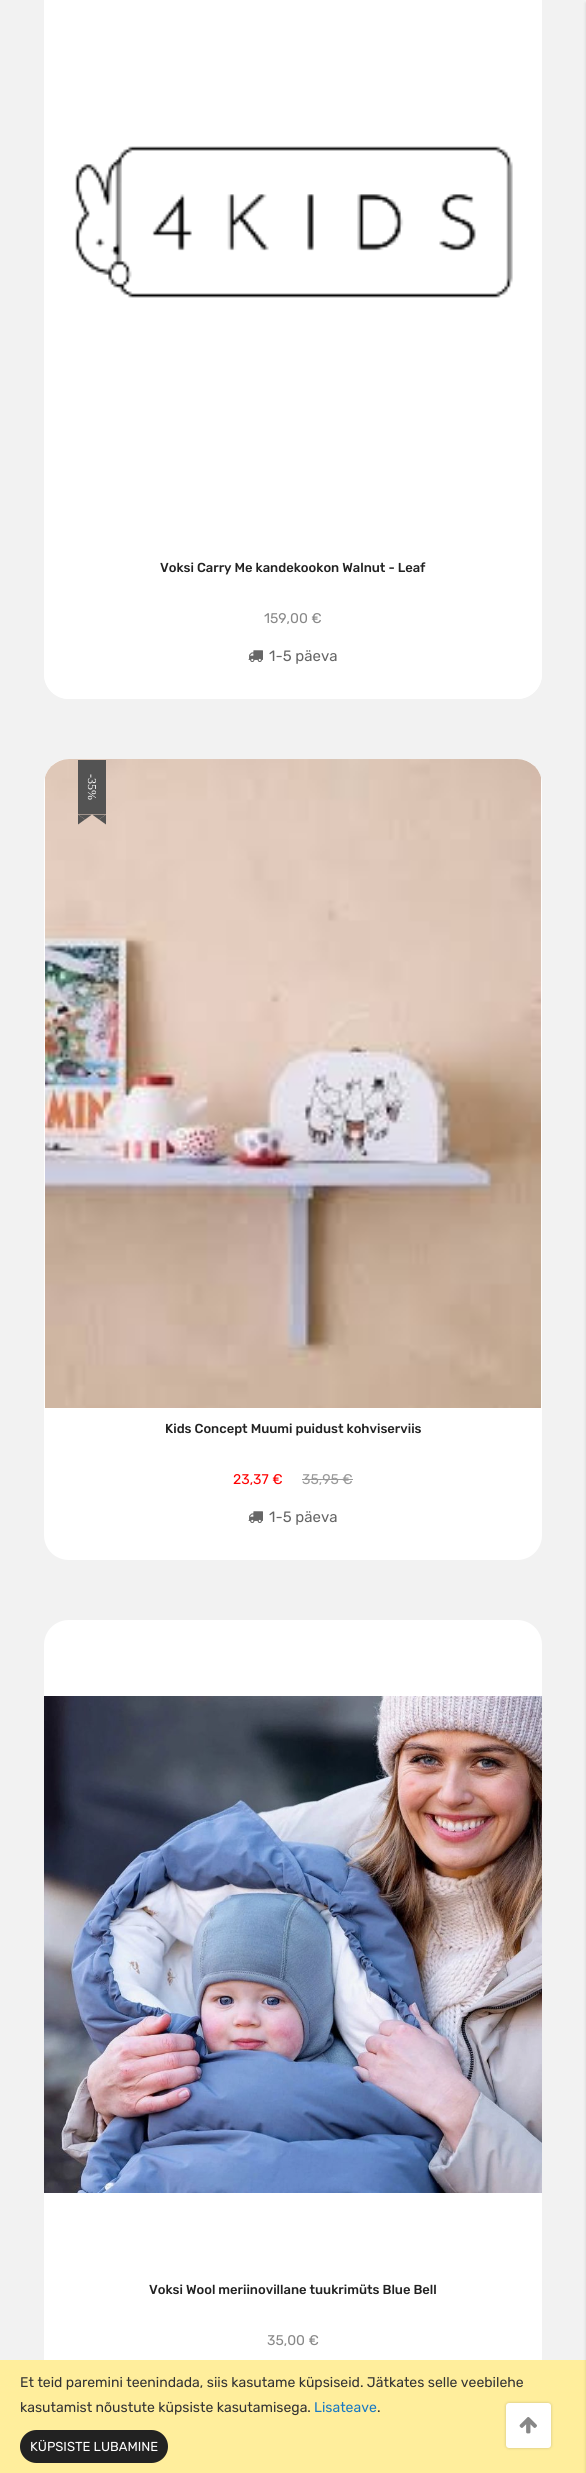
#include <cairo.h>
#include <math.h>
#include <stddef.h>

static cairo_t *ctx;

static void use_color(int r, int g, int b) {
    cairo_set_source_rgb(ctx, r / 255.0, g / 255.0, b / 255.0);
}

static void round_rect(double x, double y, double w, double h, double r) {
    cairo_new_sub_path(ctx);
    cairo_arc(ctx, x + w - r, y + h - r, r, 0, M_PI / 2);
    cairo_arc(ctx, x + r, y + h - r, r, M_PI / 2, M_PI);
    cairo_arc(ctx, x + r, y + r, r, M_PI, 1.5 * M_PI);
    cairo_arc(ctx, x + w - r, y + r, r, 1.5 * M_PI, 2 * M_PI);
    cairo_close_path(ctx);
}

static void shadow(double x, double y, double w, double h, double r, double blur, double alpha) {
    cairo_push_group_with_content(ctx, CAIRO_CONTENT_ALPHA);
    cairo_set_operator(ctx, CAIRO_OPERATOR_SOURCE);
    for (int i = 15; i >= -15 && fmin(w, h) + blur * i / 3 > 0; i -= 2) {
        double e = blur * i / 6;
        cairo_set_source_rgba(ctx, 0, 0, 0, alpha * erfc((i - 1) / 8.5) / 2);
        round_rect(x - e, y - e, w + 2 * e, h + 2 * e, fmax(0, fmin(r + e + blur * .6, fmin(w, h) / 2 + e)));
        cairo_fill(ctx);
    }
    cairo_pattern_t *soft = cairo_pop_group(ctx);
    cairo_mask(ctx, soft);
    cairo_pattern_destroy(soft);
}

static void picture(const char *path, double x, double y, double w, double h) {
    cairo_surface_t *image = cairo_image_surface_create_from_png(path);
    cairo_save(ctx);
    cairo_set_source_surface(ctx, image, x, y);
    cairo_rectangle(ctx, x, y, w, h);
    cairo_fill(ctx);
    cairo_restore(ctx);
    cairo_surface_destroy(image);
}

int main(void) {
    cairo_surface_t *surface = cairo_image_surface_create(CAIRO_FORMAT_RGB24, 586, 2473);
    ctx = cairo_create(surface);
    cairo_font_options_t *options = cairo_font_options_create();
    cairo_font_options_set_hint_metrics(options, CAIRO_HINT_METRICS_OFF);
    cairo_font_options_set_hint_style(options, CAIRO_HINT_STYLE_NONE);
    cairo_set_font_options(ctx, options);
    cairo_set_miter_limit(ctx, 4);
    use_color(242, 242, 242);
    cairo_paint(ctx);
    use_color(255, 255, 255);
    round_rect(44, -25, 498, 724, 25);
    cairo_fill(ctx);
    picture("img1.png", 75, 146, 438, 152);
    cairo_new_path(ctx);
    cairo_move_to(ctx, 44, 547);
    cairo_line_to(ctx, 542, 547);
    cairo_line_to(ctx, 542, 674);
    cairo_curve_to(ctx, 542, 688, 531, 699, 517, 699);
    cairo_line_to(ctx, 69, 699);
    cairo_curve_to(ctx, 55, 699, 44, 688, 44, 674);
    cairo_close_path(ctx);
    cairo_fill(ctx);
    cairo_select_font_face(ctx, "Rubik Medium", CAIRO_FONT_SLANT_NORMAL, CAIRO_FONT_WEIGHT_NORMAL);
    cairo_set_font_size(ctx, 13);
    use_color(34, 34, 34);
    cairo_move_to(ctx, 160, 572);
    cairo_show_text(ctx, "Voksi Carry Me kandekookon Walnut - Leaf");
    cairo_select_font_face(ctx, "Rubik", CAIRO_FONT_SLANT_NORMAL, CAIRO_FONT_WEIGHT_NORMAL);
    cairo_set_font_size(ctx, 14);
    use_color(136, 136, 136);
    cairo_move_to(ctx, 264, 623);
    cairo_show_text(ctx, "159,00 €");
    picture("img2.png", 248, 650, 15, 12);
    cairo_set_font_size(ctx, 15);
    use_color(102, 102, 102);
    cairo_move_to(ctx, 269, 661);
    cairo_show_text(ctx, "1-5 päeva");
    use_color(255, 255, 255);
    cairo_new_path(ctx);
    cairo_move_to(ctx, 69, 759);
    cairo_line_to(ctx, 517, 759);
    cairo_curve_to(ctx, 531, 759, 542, 770, 542, 784);
    cairo_line_to(ctx, 542, 1408);
    cairo_line_to(ctx, 44, 1408);
    cairo_line_to(ctx, 44, 784);
    cairo_curve_to(ctx, 44, 770, 55, 759, 69, 759);
    cairo_close_path(ctx);
    cairo_fill(ctx);
    picture("img3.png", 45, 759, 496, 649);
    use_color(83, 83, 83);
    cairo_rectangle(ctx, 78, 760, 28, 54);
    cairo_fill(ctx);
    cairo_select_font_face(ctx, "Liberation Serif", CAIRO_FONT_SLANT_NORMAL, CAIRO_FONT_WEIGHT_NORMAL);
    cairo_set_font_size(ctx, 12);
    use_color(255, 255, 255);
    cairo_save(ctx);
    cairo_translate(ctx, 88, 774);
    cairo_rotate(ctx, 90 * M_PI / 180);
    cairo_move_to(ctx, 0, 0);
    cairo_show_text(ctx, "-35%");
    cairo_restore(ctx);
    use_color(83, 83, 83);
    cairo_new_path(ctx);
    cairo_move_to(ctx, 78, 824.5);
    cairo_line_to(ctx, 78, 814.5);
    cairo_line_to(ctx, 85, 819.5);
    cairo_close_path(ctx);
    cairo_fill(ctx);
    cairo_new_path(ctx);
    cairo_move_to(ctx, 78, 814.5);
    cairo_line_to(ctx, 92, 814.5);
    cairo_line_to(ctx, 85, 819.5);
    cairo_close_path(ctx);
    cairo_move_to(ctx, 106, 814.5);
    cairo_line_to(ctx, 106, 824.5);
    cairo_line_to(ctx, 99, 819.5);
    cairo_close_path(ctx);
    cairo_fill(ctx);
    cairo_new_path(ctx);
    cairo_move_to(ctx, 92, 814.5);
    cairo_line_to(ctx, 106, 814.5);
    cairo_line_to(ctx, 99, 819.5);
    cairo_close_path(ctx);
    cairo_fill(ctx);
    use_color(255, 255, 255);
    cairo_new_path(ctx);
    cairo_move_to(ctx, 44, 1408);
    cairo_line_to(ctx, 542, 1408);
    cairo_line_to(ctx, 542, 1535);
    cairo_curve_to(ctx, 542, 1549, 531, 1560, 517, 1560);
    cairo_line_to(ctx, 69, 1560);
    cairo_curve_to(ctx, 55, 1560, 44, 1549, 44, 1535);
    cairo_close_path(ctx);
    cairo_fill(ctx);
    cairo_select_font_face(ctx, "Rubik Medium", CAIRO_FONT_SLANT_NORMAL, CAIRO_FONT_WEIGHT_NORMAL);
    cairo_set_font_size(ctx, 13);
    use_color(34, 34, 34);
    cairo_move_to(ctx, 165, 1433);
    cairo_show_text(ctx, "Kids Concept Muumi puidust kohviserviis");
    cairo_select_font_face(ctx, "Rubik", CAIRO_FONT_SLANT_NORMAL, CAIRO_FONT_WEIGHT_NORMAL);
    cairo_set_font_size(ctx, 14);
    use_color(255, 0, 0);
    cairo_move_to(ctx, 233, 1484);
    cairo_show_text(ctx, "23,37 €");
    use_color(153, 153, 153);
    cairo_move_to(ctx, 302, 1484);
    cairo_show_text(ctx, "35,95 €");
    cairo_rectangle(ctx, 302, 1479, 51, 1);
    cairo_fill(ctx);
    picture("img2.png", 248, 1511, 15, 12);
    cairo_set_font_size(ctx, 15);
    use_color(102, 102, 102);
    cairo_move_to(ctx, 269, 1522);
    cairo_show_text(ctx, "1-5 päeva");
    use_color(255, 255, 255);
    cairo_new_path(ctx);
    cairo_move_to(ctx, 69, 1620);
    cairo_line_to(ctx, 517, 1620);
    cairo_curve_to(ctx, 531, 1620, 542, 1631, 542, 1645);
    cairo_line_to(ctx, 542, 2269);
    cairo_line_to(ctx, 44, 2269);
    cairo_line_to(ctx, 44, 1645);
    cairo_curve_to(ctx, 44, 1631, 55, 1620, 69, 1620);
    cairo_close_path(ctx);
    cairo_fill(ctx);
    picture("img4.png", 44, 1696, 498, 497);
    cairo_rectangle(ctx, 44, 2269, 498, 91);
    cairo_fill(ctx);
    cairo_select_font_face(ctx, "Rubik Medium", CAIRO_FONT_SLANT_NORMAL, CAIRO_FONT_WEIGHT_NORMAL);
    cairo_set_font_size(ctx, 13);
    use_color(34, 34, 34);
    cairo_move_to(ctx, 149, 2294);
    cairo_show_text(ctx, "Voksi Wool meriinovillane tuukrimüts Blue Bell");
    cairo_select_font_face(ctx, "Rubik", CAIRO_FONT_SLANT_NORMAL, CAIRO_FONT_WEIGHT_NORMAL);
    cairo_set_font_size(ctx, 14);
    use_color(136, 136, 136);
    cairo_move_to(ctx, 267, 2345);
    cairo_show_text(ctx, "35,00 €");
    use_color(255, 238, 156);
    cairo_rectangle(ctx, 0, 2360, 586, 113);
    cairo_fill(ctx);
    use_color(0, 0, 0);
    shadow(586, 3, 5, 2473, 0, 1.5, 0.15);
    shadow(506, 2403, 45, 45, 3, 1.5, 0.2);
    use_color(255, 255, 255);
    round_rect(506, 2403, 45, 45, 3);
    cairo_fill(ctx);
    picture("img5.png", 519, 2417, 18, 17);
    use_color(51, 51, 51);
    cairo_move_to(ctx, 20, 2387);
    cairo_show_text(ctx, "Et teid paremini teenindada, siis kasutame küpsiseid. Jätkates selle veebilehe");
    cairo_move_to(ctx, 20, 2412);
    cairo_show_text(ctx, "kasutamist nõustute küpsiste kasutamisega.");
    use_color(25, 121, 195);
    cairo_move_to(ctx, 314, 2412);
    cairo_show_text(ctx, "Lisateave");
    use_color(51, 51, 51);
    cairo_move_to(ctx, 377, 2412);
    cairo_show_text(ctx, ".");
    use_color(34, 34, 34);
    round_rect(20, 2430, 148, 33, 16.5);
    cairo_fill(ctx);
    cairo_set_font_size(ctx, 13);
    use_color(255, 255, 255);
    cairo_move_to(ctx, 30, 2451);
    cairo_show_text(ctx, "KÜPSISTE LUBAMINE");
    cairo_surface_write_to_png(surface, "result.png");
    cairo_font_options_destroy(options);
    cairo_destroy(ctx);
    cairo_surface_destroy(surface);
    return 0;
}
